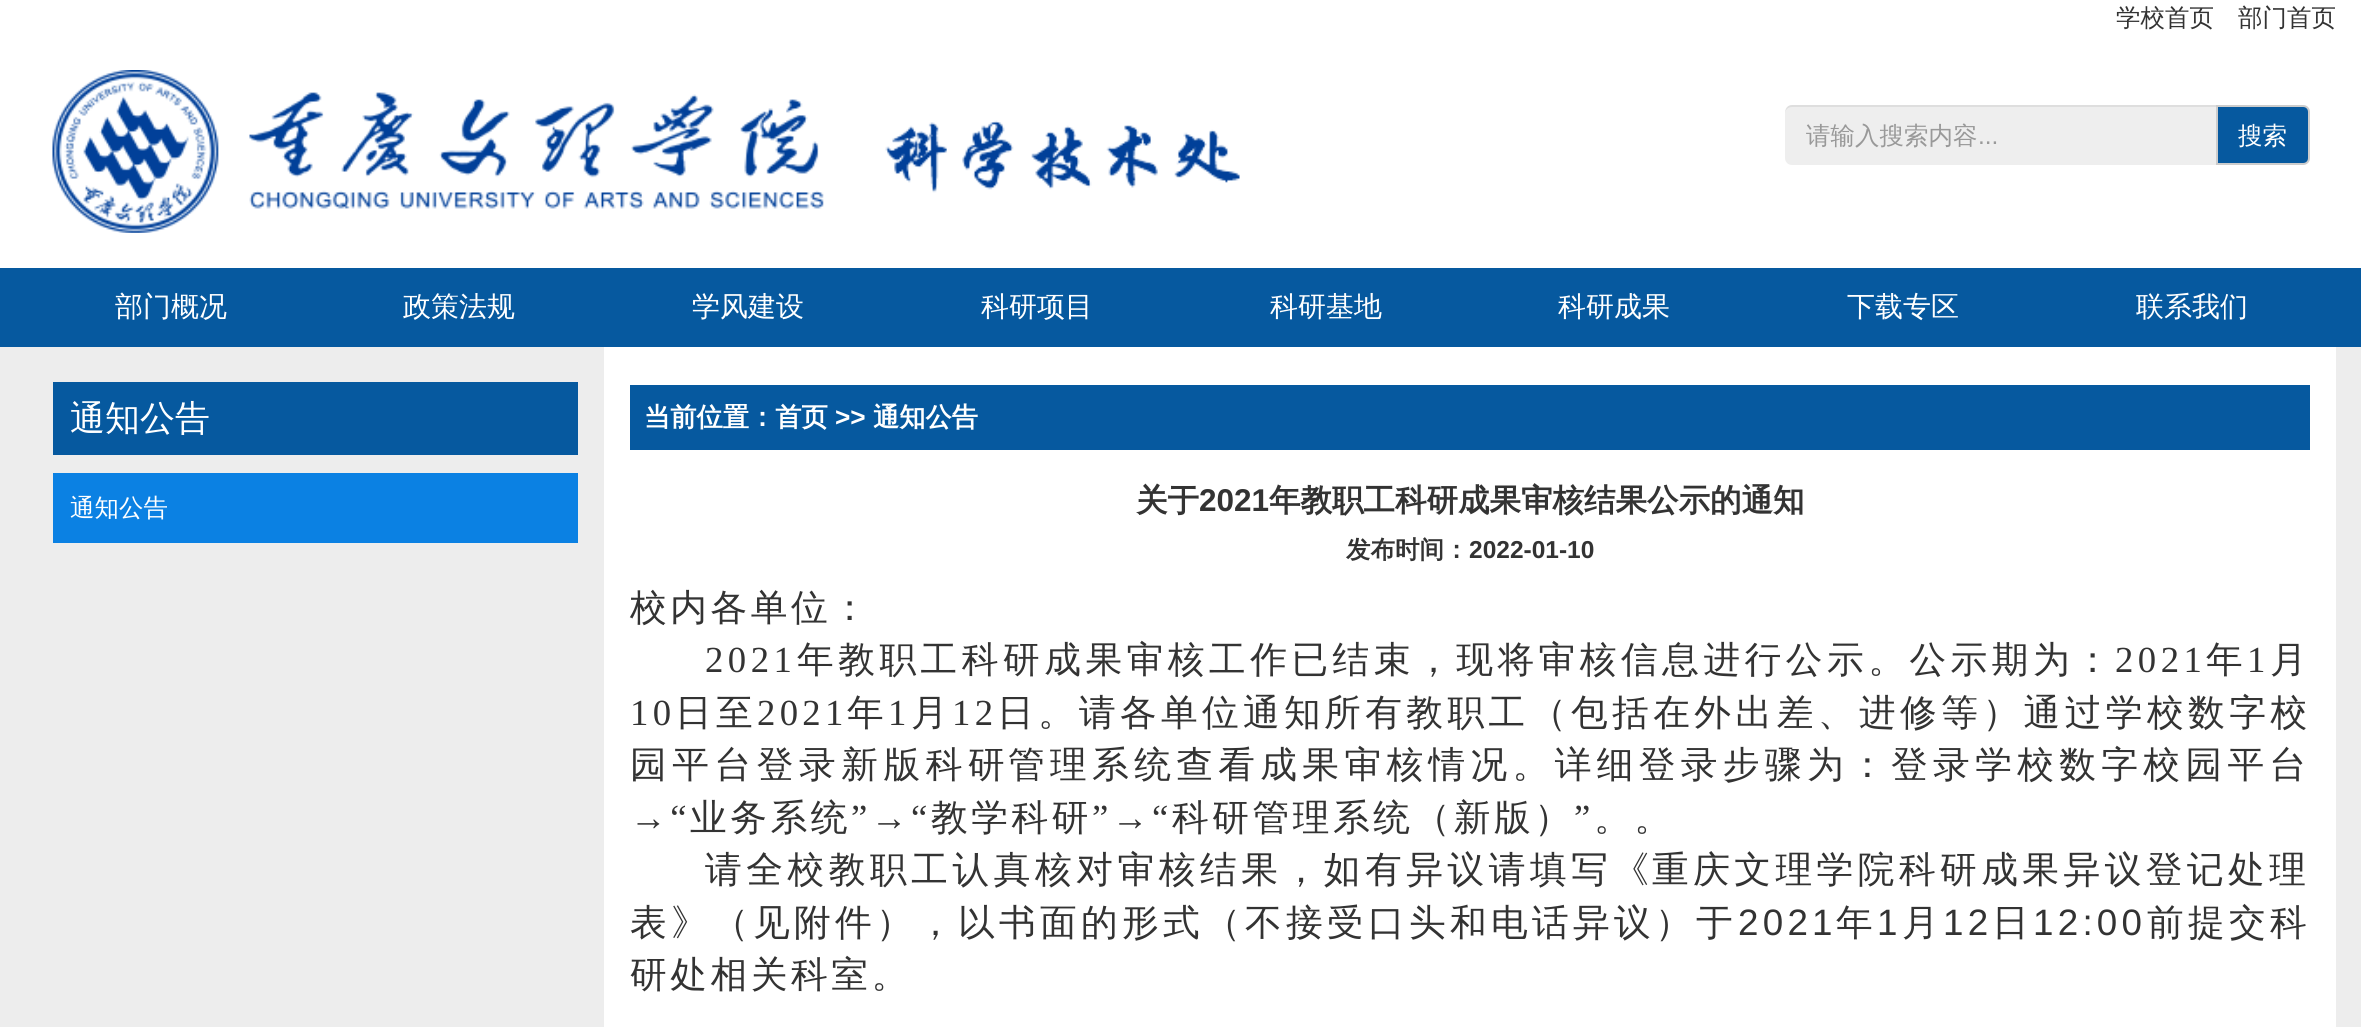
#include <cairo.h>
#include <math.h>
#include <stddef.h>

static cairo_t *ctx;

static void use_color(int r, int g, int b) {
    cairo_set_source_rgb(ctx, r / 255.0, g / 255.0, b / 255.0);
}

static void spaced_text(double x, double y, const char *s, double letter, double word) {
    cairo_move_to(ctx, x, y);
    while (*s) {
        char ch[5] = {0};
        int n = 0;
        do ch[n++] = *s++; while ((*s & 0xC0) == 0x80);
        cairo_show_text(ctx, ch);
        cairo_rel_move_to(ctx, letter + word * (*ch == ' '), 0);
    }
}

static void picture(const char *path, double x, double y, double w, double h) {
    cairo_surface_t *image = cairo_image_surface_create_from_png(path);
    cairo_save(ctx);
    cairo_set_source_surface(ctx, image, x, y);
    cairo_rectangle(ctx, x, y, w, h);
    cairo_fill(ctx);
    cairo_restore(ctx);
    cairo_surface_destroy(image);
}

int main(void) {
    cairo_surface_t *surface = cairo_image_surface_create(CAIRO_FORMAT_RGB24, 2361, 1027);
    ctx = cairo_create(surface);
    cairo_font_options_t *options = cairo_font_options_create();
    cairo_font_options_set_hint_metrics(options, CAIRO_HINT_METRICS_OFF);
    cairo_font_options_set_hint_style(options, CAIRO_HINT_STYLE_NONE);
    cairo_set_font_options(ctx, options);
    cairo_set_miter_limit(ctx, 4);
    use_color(255, 255, 255);
    cairo_paint(ctx);
    cairo_select_font_face(ctx, "WenQuanYi Zen Hei Medium", CAIRO_FONT_SLANT_NORMAL, CAIRO_FONT_WEIGHT_NORMAL);
    cairo_set_font_size(ctx, 24.5);
    use_color(51, 51, 51);
    cairo_move_to(ctx, 2116, 26);
    cairo_show_text(ctx, "学校首页");
    cairo_move_to(ctx, 2238, 26);
    cairo_show_text(ctx, "部门首页");
    picture("img1.png", 52, 70, 1188, 163);
    use_color(238, 238, 238);
    cairo_new_path(ctx);
    cairo_move_to(ctx, 1792, 105);
    cairo_line_to(ctx, 2217, 105);
    cairo_line_to(ctx, 2217, 165);
    cairo_line_to(ctx, 1792, 165);
    cairo_curve_to(ctx, 1788, 165, 1785, 162, 1785, 158);
    cairo_line_to(ctx, 1785, 112);
    cairo_curve_to(ctx, 1785, 108, 1788, 105, 1792, 105);
    cairo_close_path(ctx);
    cairo_fill(ctx);
    cairo_set_source_rgba(ctx, 0, 0, 0, 0.07);
    cairo_new_path(ctx);
    cairo_move_to(ctx, 1792, 107);
    cairo_line_to(ctx, 2217, 107);
    cairo_line_to(ctx, 2217, 105);
    cairo_line_to(ctx, 1792, 105);
    cairo_curve_to(ctx, 1787, 105, 1785, 110, 1785, 114);
    cairo_curve_to(ctx, 1785, 110, 1788, 107, 1792, 107);
    cairo_close_path(ctx);
    cairo_fill(ctx);
    use_color(153, 153, 153);
    cairo_move_to(ctx, 1806, 144);
    cairo_show_text(ctx, "请输入搜索内容");
    cairo_select_font_face(ctx, "Liberation Sans", CAIRO_FONT_SLANT_NORMAL, CAIRO_FONT_WEIGHT_NORMAL);
    cairo_move_to(ctx, 1978, 144);
    cairo_show_text(ctx, "...");
    use_color(6, 89, 159);
    cairo_new_path(ctx);
    cairo_move_to(ctx, 2217, 106);
    cairo_line_to(ctx, 2303, 106);
    cairo_curve_to(ctx, 2306.5, 106, 2309, 108.5, 2309, 112);
    cairo_line_to(ctx, 2309, 158);
    cairo_curve_to(ctx, 2309, 161.5, 2306.5, 164, 2303, 164);
    cairo_line_to(ctx, 2217, 164);
    cairo_close_path(ctx);
    cairo_fill_preserve(ctx);
    use_color(204, 204, 204);
    cairo_stroke(ctx);
    cairo_select_font_face(ctx, "WenQuanYi Zen Hei Medium", CAIRO_FONT_SLANT_NORMAL, CAIRO_FONT_WEIGHT_NORMAL);
    use_color(255, 255, 255);
    cairo_move_to(ctx, 2238, 144);
    cairo_show_text(ctx, "搜索");
    use_color(6, 89, 159);
    cairo_rectangle(ctx, 0, 268, 2361, 79);
    cairo_fill(ctx);
    cairo_set_font_size(ctx, 28);
    use_color(255, 255, 255);
    cairo_move_to(ctx, 115, 316);
    cairo_show_text(ctx, "部门概况");
    cairo_move_to(ctx, 403, 316);
    cairo_show_text(ctx, "政策法规");
    cairo_move_to(ctx, 692, 316);
    cairo_show_text(ctx, "学风建设");
    cairo_move_to(ctx, 981, 316);
    cairo_show_text(ctx, "科研项目");
    cairo_move_to(ctx, 1270, 316);
    cairo_show_text(ctx, "科研基地");
    cairo_move_to(ctx, 1558, 316);
    cairo_show_text(ctx, "科研成果");
    cairo_move_to(ctx, 1847, 316);
    cairo_show_text(ctx, "下载专区");
    cairo_move_to(ctx, 2136, 316);
    cairo_show_text(ctx, "联系我们");
    use_color(237, 237, 237);
    cairo_rectangle(ctx, 0, 347, 2361, 680);
    cairo_fill(ctx);
    use_color(6, 89, 159);
    cairo_rectangle(ctx, 53, 382, 525, 73);
    cairo_fill(ctx);
    cairo_set_font_size(ctx, 35);
    use_color(255, 255, 255);
    cairo_move_to(ctx, 70, 430);
    cairo_show_text(ctx, "通知公告");
    use_color(11, 129, 227);
    cairo_rectangle(ctx, 53, 473, 525, 70);
    cairo_fill(ctx);
    cairo_set_font_size(ctx, 24.5);
    use_color(255, 255, 255);
    cairo_move_to(ctx, 70, 516);
    cairo_show_text(ctx, "通知公告");
    cairo_rectangle(ctx, 604, 347, 1732, 680);
    cairo_fill(ctx);
    use_color(6, 89, 159);
    cairo_rectangle(ctx, 630, 385, 1680, 65);
    cairo_fill(ctx);
    cairo_select_font_face(ctx, "WenQuanYi Zen Hei", CAIRO_FONT_SLANT_NORMAL, CAIRO_FONT_WEIGHT_BOLD);
    cairo_set_font_size(ctx, 26.25);
    use_color(255, 255, 255);
    cairo_move_to(ctx, 644, 426);
    cairo_show_text(ctx, "当前位置：首页");
    cairo_select_font_face(ctx, "Liberation Sans", CAIRO_FONT_SLANT_NORMAL, CAIRO_FONT_WEIGHT_BOLD);
    cairo_move_to(ctx, 835, 426);
    cairo_show_text(ctx, ">>");
    cairo_select_font_face(ctx, "WenQuanYi Zen Hei", CAIRO_FONT_SLANT_NORMAL, CAIRO_FONT_WEIGHT_BOLD);
    cairo_move_to(ctx, 873, 426);
    cairo_show_text(ctx, "通知公告");
    cairo_set_font_size(ctx, 31.5);
    use_color(51, 51, 51);
    cairo_move_to(ctx, 1136, 511);
    cairo_show_text(ctx, "关于");
    cairo_select_font_face(ctx, "Liberation Sans", CAIRO_FONT_SLANT_NORMAL, CAIRO_FONT_WEIGHT_BOLD);
    cairo_move_to(ctx, 1199, 511);
    cairo_show_text(ctx, "2021");
    cairo_select_font_face(ctx, "WenQuanYi Zen Hei", CAIRO_FONT_SLANT_NORMAL, CAIRO_FONT_WEIGHT_BOLD);
    cairo_move_to(ctx, 1269, 511);
    cairo_show_text(ctx, "年教职工科研成果审核结果公示的通知");
    cairo_set_font_size(ctx, 24.5);
    cairo_move_to(ctx, 1346, 558);
    cairo_show_text(ctx, "发布时间：");
    cairo_select_font_face(ctx, "Liberation Sans", CAIRO_FONT_SLANT_NORMAL, CAIRO_FONT_WEIGHT_BOLD);
    cairo_move_to(ctx, 1469, 558);
    cairo_show_text(ctx, "2022-01-10");
    cairo_select_font_face(ctx, "WenQuanYi Zen Hei Medium", CAIRO_FONT_SLANT_NORMAL, CAIRO_FONT_WEIGHT_NORMAL);
    cairo_set_font_size(ctx, 36.75);
    spaced_text(630, 620, "校内各单位：", 3.5, 0);
    cairo_select_font_face(ctx, "Liberation Serif", CAIRO_FONT_SLANT_NORMAL, CAIRO_FONT_WEIGHT_NORMAL);
    spaced_text(705, 672, "2021", 4.45, 0);
    cairo_select_font_face(ctx, "WenQuanYi Zen Hei Medium", CAIRO_FONT_SLANT_NORMAL, CAIRO_FONT_WEIGHT_NORMAL);
    spaced_text(797, 672, "年教职工科研成果审核工作已结束，现将审核信息进行公示。公示期为：", 4.45, 0);
    cairo_select_font_face(ctx, "Liberation Serif", CAIRO_FONT_SLANT_NORMAL, CAIRO_FONT_WEIGHT_NORMAL);
    spaced_text(2115, 672, "2021", 4.45, 0);
    cairo_select_font_face(ctx, "WenQuanYi Zen Hei Medium", CAIRO_FONT_SLANT_NORMAL, CAIRO_FONT_WEIGHT_NORMAL);
    spaced_text(2206, 672, "年", 4.45, 0);
    cairo_select_font_face(ctx, "Liberation Serif", CAIRO_FONT_SLANT_NORMAL, CAIRO_FONT_WEIGHT_NORMAL);
    spaced_text(2247, 672, "1", 4.45, 0);
    cairo_select_font_face(ctx, "WenQuanYi Zen Hei Medium", CAIRO_FONT_SLANT_NORMAL, CAIRO_FONT_WEIGHT_NORMAL);
    spaced_text(2270, 672, "月", 4.45, 0);
    cairo_select_font_face(ctx, "Liberation Serif", CAIRO_FONT_SLANT_NORMAL, CAIRO_FONT_WEIGHT_NORMAL);
    spaced_text(630, 725, "10", 4.25, 0);
    cairo_select_font_face(ctx, "WenQuanYi Zen Hei Medium", CAIRO_FONT_SLANT_NORMAL, CAIRO_FONT_WEIGHT_NORMAL);
    spaced_text(675, 725, "日至", 4.25, 0);
    cairo_select_font_face(ctx, "Liberation Serif", CAIRO_FONT_SLANT_NORMAL, CAIRO_FONT_WEIGHT_NORMAL);
    spaced_text(757, 725, "2021", 4.25, 0);
    cairo_select_font_face(ctx, "WenQuanYi Zen Hei Medium", CAIRO_FONT_SLANT_NORMAL, CAIRO_FONT_WEIGHT_NORMAL);
    spaced_text(847, 725, "年", 4.25, 0);
    cairo_select_font_face(ctx, "Liberation Serif", CAIRO_FONT_SLANT_NORMAL, CAIRO_FONT_WEIGHT_NORMAL);
    spaced_text(888, 725, "1", 4.25, 0);
    cairo_select_font_face(ctx, "WenQuanYi Zen Hei Medium", CAIRO_FONT_SLANT_NORMAL, CAIRO_FONT_WEIGHT_NORMAL);
    spaced_text(911, 725, "月", 4.25, 0);
    cairo_select_font_face(ctx, "Liberation Serif", CAIRO_FONT_SLANT_NORMAL, CAIRO_FONT_WEIGHT_NORMAL);
    spaced_text(952, 725, "12", 4.25, 0);
    cairo_select_font_face(ctx, "WenQuanYi Zen Hei Medium", CAIRO_FONT_SLANT_NORMAL, CAIRO_FONT_WEIGHT_NORMAL);
    spaced_text(997, 725, "日。请各单位通知", 4.25, 0);
    spaced_text(1324, 725, "所有教职工（包括在外出差、进修等）通过学校数字校", 4.4, 0);
    spaced_text(630, 777, "园平台登录新版科研", 5.5, 0);
    spaced_text(1008, 777, "管理系统查看成果审核情况。详细登录步骤为：登录学校数字校园平台", 5.3, 0);
    cairo_select_font_face(ctx, "Liberation Serif", CAIRO_FONT_SLANT_NORMAL, CAIRO_FONT_WEIGHT_NORMAL);
    spaced_text(630, 830, "→“", 3.5, 0);
    cairo_select_font_face(ctx, "WenQuanYi Zen Hei Medium", CAIRO_FONT_SLANT_NORMAL, CAIRO_FONT_WEIGHT_NORMAL);
    spaced_text(690, 830, "业务系统", 3.5, 0);
    cairo_select_font_face(ctx, "Liberation Serif", CAIRO_FONT_SLANT_NORMAL, CAIRO_FONT_WEIGHT_NORMAL);
    spaced_text(851, 830, "”→“", 3.5, 0);
    cairo_select_font_face(ctx, "WenQuanYi Zen Hei Medium", CAIRO_FONT_SLANT_NORMAL, CAIRO_FONT_WEIGHT_NORMAL);
    spaced_text(931, 830, "教学科研", 3.5, 0);
    cairo_select_font_face(ctx, "Liberation Serif", CAIRO_FONT_SLANT_NORMAL, CAIRO_FONT_WEIGHT_NORMAL);
    spaced_text(1092, 830, "”→“", 3.5, 0);
    cairo_select_font_face(ctx, "WenQuanYi Zen Hei Medium", CAIRO_FONT_SLANT_NORMAL, CAIRO_FONT_WEIGHT_NORMAL);
    spaced_text(1172, 830, "科研管理系统（新版）", 3.5, 0);
    cairo_select_font_face(ctx, "Liberation Serif", CAIRO_FONT_SLANT_NORMAL, CAIRO_FONT_WEIGHT_NORMAL);
    spaced_text(1574, 830, "”", 3.5, 0);
    cairo_select_font_face(ctx, "WenQuanYi Zen Hei Medium", CAIRO_FONT_SLANT_NORMAL, CAIRO_FONT_WEIGHT_NORMAL);
    spaced_text(1594, 830, "。。", 3.5, 0);
    spaced_text(705, 882, "请全校教职工认真核对审核结果，如有异议请填写《", 4.5, 0);
    spaced_text(1652, 882, "重庆文理学院科研成果异议登记处理", 4.4, 0);
    spaced_text(630, 935, "表", 3.5, 0);
    spaced_text(671, 935, "》（见附件），以书面的形式（不接受口头和电话异议）于", 4.25, 0);
    cairo_select_font_face(ctx, "Liberation Sans", CAIRO_FONT_SLANT_NORMAL, CAIRO_FONT_WEIGHT_NORMAL);
    spaced_text(1738, 935, "2021", 4.25, 0);
    cairo_select_font_face(ctx, "WenQuanYi Zen Hei Medium", CAIRO_FONT_SLANT_NORMAL, CAIRO_FONT_WEIGHT_NORMAL);
    spaced_text(1836, 935, "年", 4.25, 0);
    cairo_select_font_face(ctx, "Liberation Sans", CAIRO_FONT_SLANT_NORMAL, CAIRO_FONT_WEIGHT_NORMAL);
    spaced_text(1877, 935, "1", 4.25, 0);
    cairo_select_font_face(ctx, "WenQuanYi Zen Hei Medium", CAIRO_FONT_SLANT_NORMAL, CAIRO_FONT_WEIGHT_NORMAL);
    spaced_text(1902, 935, "月", 4.25, 0);
    cairo_select_font_face(ctx, "Liberation Sans", CAIRO_FONT_SLANT_NORMAL, CAIRO_FONT_WEIGHT_NORMAL);
    spaced_text(1943, 935, "12", 4.25, 0);
    cairo_select_font_face(ctx, "WenQuanYi Zen Hei Medium", CAIRO_FONT_SLANT_NORMAL, CAIRO_FONT_WEIGHT_NORMAL);
    spaced_text(1992, 935, "日", 4.25, 0);
    cairo_select_font_face(ctx, "Liberation Sans", CAIRO_FONT_SLANT_NORMAL, CAIRO_FONT_WEIGHT_NORMAL);
    spaced_text(2033, 935, "12:00", 4.25, 0);
    cairo_select_font_face(ctx, "WenQuanYi Zen Hei Medium", CAIRO_FONT_SLANT_NORMAL, CAIRO_FONT_WEIGHT_NORMAL);
    spaced_text(2147, 935, "前提交科", 4.25, 0);
    spaced_text(630, 987, "研处相关科室。", 3.5, 0);
    cairo_surface_write_to_png(surface, "result.png");
    cairo_font_options_destroy(options);
    cairo_destroy(ctx);
    cairo_surface_destroy(surface);
    return 0;
}
